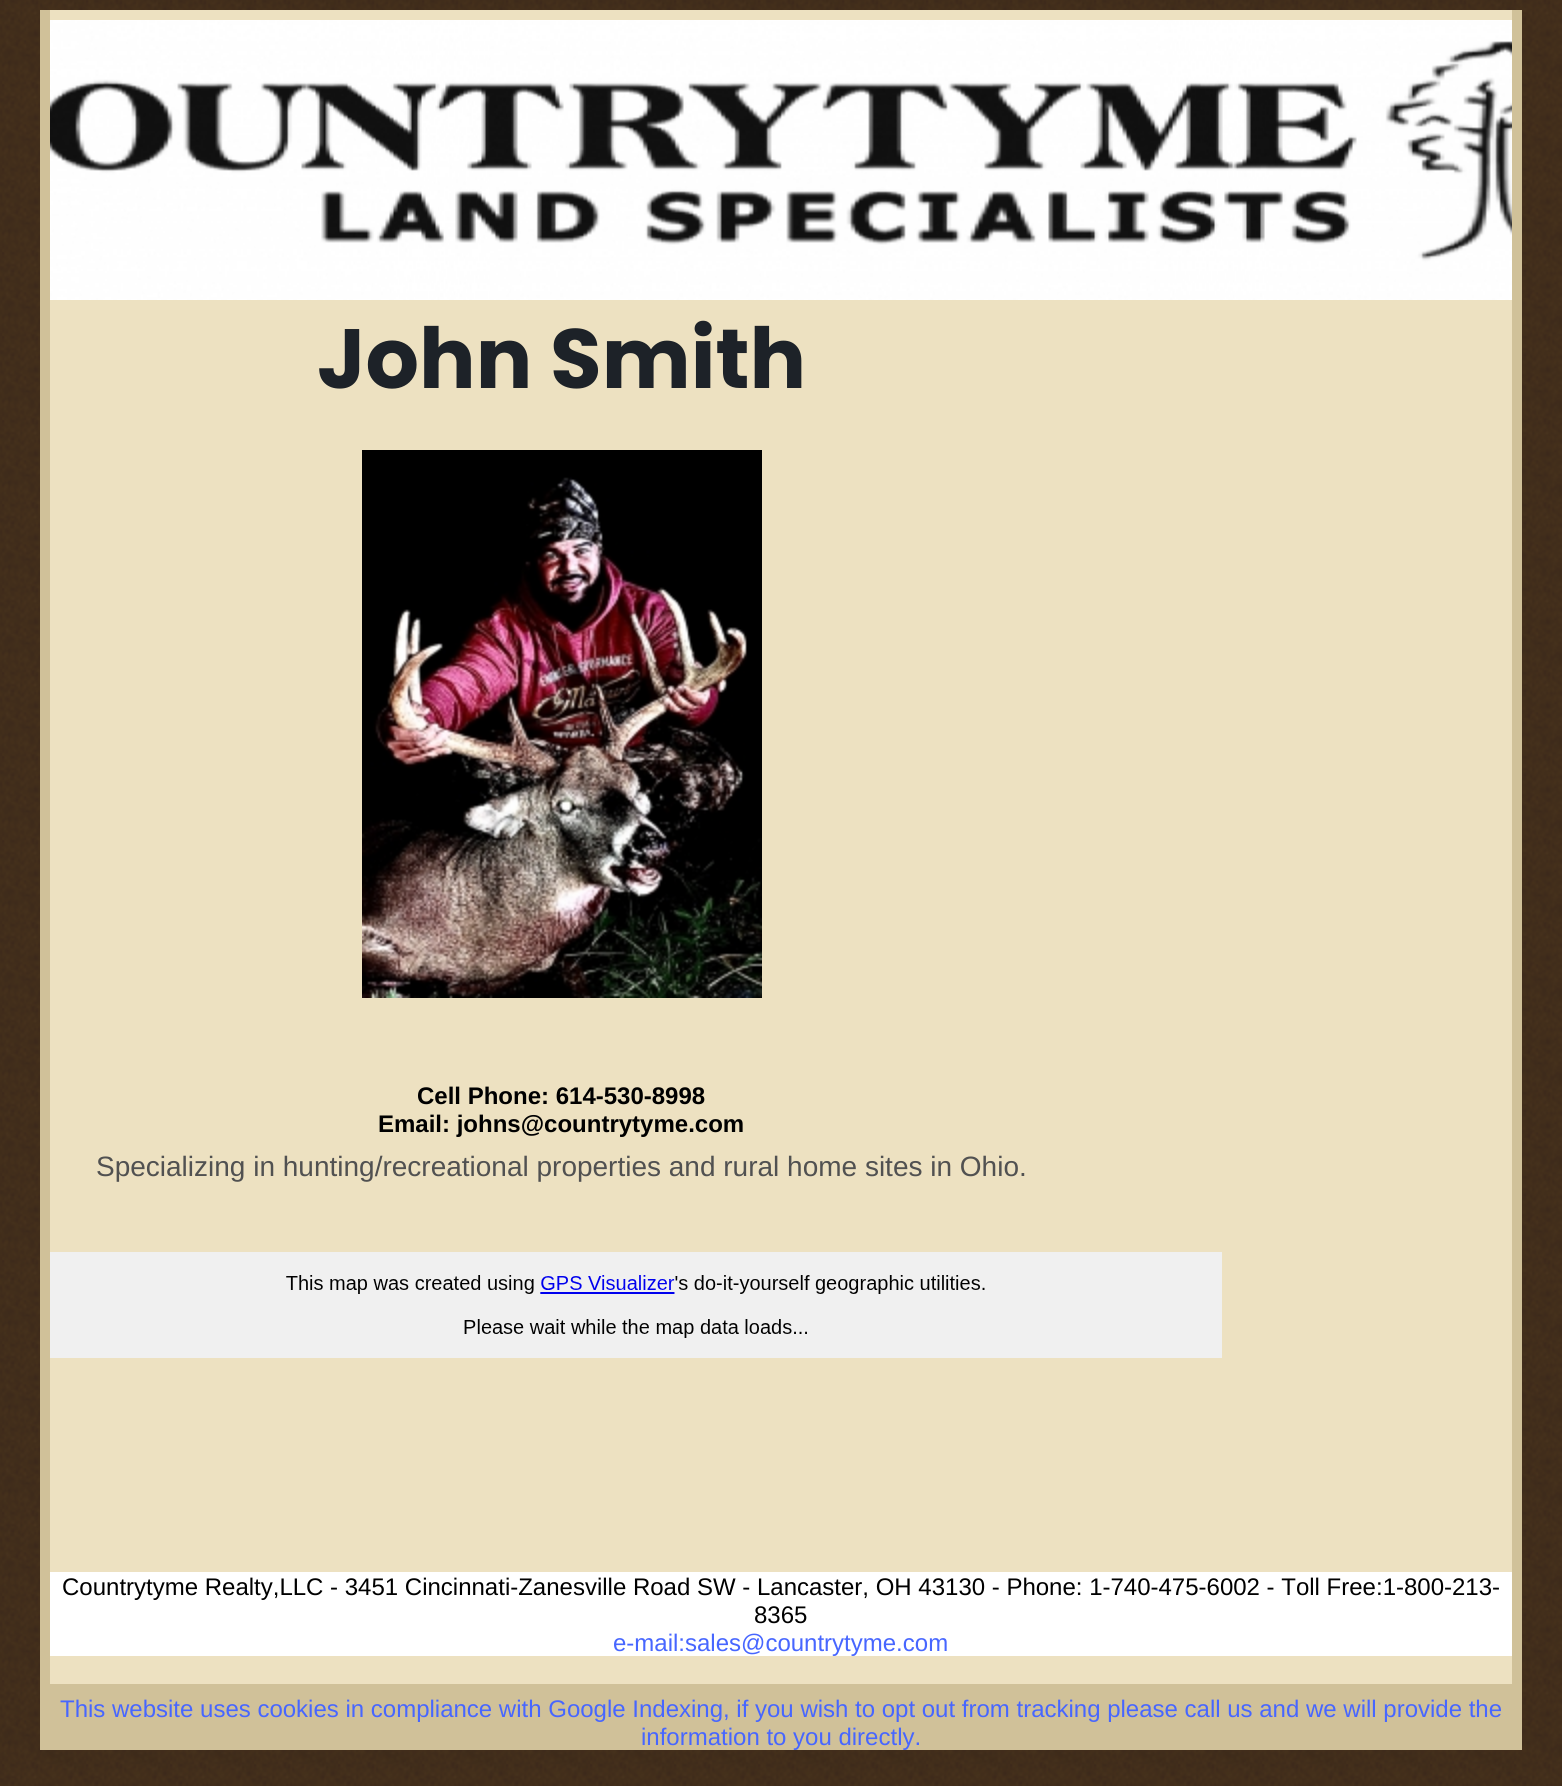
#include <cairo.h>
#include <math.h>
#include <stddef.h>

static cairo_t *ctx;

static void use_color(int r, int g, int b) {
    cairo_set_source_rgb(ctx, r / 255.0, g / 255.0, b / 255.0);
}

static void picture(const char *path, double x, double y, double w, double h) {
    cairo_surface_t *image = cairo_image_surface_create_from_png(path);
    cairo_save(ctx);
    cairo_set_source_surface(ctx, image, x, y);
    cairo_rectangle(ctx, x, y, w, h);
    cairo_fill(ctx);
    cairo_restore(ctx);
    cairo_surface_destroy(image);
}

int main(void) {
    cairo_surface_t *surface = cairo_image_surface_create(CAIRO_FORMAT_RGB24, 1562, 1786);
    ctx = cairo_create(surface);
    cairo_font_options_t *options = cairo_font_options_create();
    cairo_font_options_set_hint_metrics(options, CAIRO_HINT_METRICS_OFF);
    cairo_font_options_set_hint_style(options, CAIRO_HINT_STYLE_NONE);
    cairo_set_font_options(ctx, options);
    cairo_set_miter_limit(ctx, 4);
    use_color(255, 255, 255);
    cairo_paint(ctx);
    picture("img1.png", 0, 0, 1562, 1786);
    use_color(208, 193, 153);
    cairo_rectangle(ctx, 40, 10, 1482, 1740);
    cairo_fill(ctx);
    use_color(237, 225, 193);
    cairo_rectangle(ctx, 50, 10, 1462, 1674);
    cairo_fill(ctx);
    picture("img2.png", 50, 20, 1462, 280);
    cairo_select_font_face(ctx, "Poppins", CAIRO_FONT_SLANT_NORMAL, CAIRO_FONT_WEIGHT_BOLD);
    cairo_set_font_size(ctx, 84);
    use_color(29, 34, 40);
    cairo_move_to(ctx, 317, 388);
    cairo_show_text(ctx, "John Smith");
    picture("img3.png", 362, 450, 400, 548);
    cairo_select_font_face(ctx, "Liberation Sans", CAIRO_FONT_SLANT_NORMAL, CAIRO_FONT_WEIGHT_BOLD);
    cairo_set_font_size(ctx, 24);
    use_color(0, 0, 0);
    cairo_move_to(ctx, 417, 1104);
    cairo_show_text(ctx, "Cell Phone: 614-530-8998");
    cairo_move_to(ctx, 378, 1132);
    cairo_show_text(ctx, "Email: johns@countrytyme.com");
    cairo_select_font_face(ctx, "Liberation Sans", CAIRO_FONT_SLANT_NORMAL, CAIRO_FONT_WEIGHT_NORMAL);
    cairo_set_font_size(ctx, 28);
    use_color(81, 81, 81);
    cairo_move_to(ctx, 96, 1176);
    cairo_show_text(ctx, "Specializing in hunting/recreational properties and rural home sites in Ohio.");
    picture("img4.png", 50, 1252, 1172, 106);
    use_color(255, 255, 255);
    cairo_rectangle(ctx, 50, 1572, 1462, 84);
    cairo_fill(ctx);
    cairo_set_font_size(ctx, 24);
    use_color(0, 0, 0);
    cairo_move_to(ctx, 62, 1595);
    cairo_show_text(ctx, "Countrytyme Realty,LLC - 3451 Cincinnati-Zanesville Road SW - Lancaster, OH 43130 - Phone: 1-740-475-6002 - Toll Free:1-800-213-");
    cairo_move_to(ctx, 754, 1623);
    cairo_show_text(ctx, "8365");
    use_color(71, 102, 255);
    cairo_move_to(ctx, 613, 1651);
    cairo_show_text(ctx, "e-mail:sales@countrytyme.com");
    cairo_move_to(ctx, 60, 1717);
    cairo_show_text(ctx, "This website uses cookies in compliance with Google Indexing, if you wish to opt out from tracking please call us and we will provide the");
    cairo_move_to(ctx, 641, 1745);
    cairo_show_text(ctx, "information to you directly.");
    cairo_surface_write_to_png(surface, "result.png");
    cairo_font_options_destroy(options);
    cairo_destroy(ctx);
    cairo_surface_destroy(surface);
    return 0;
}
